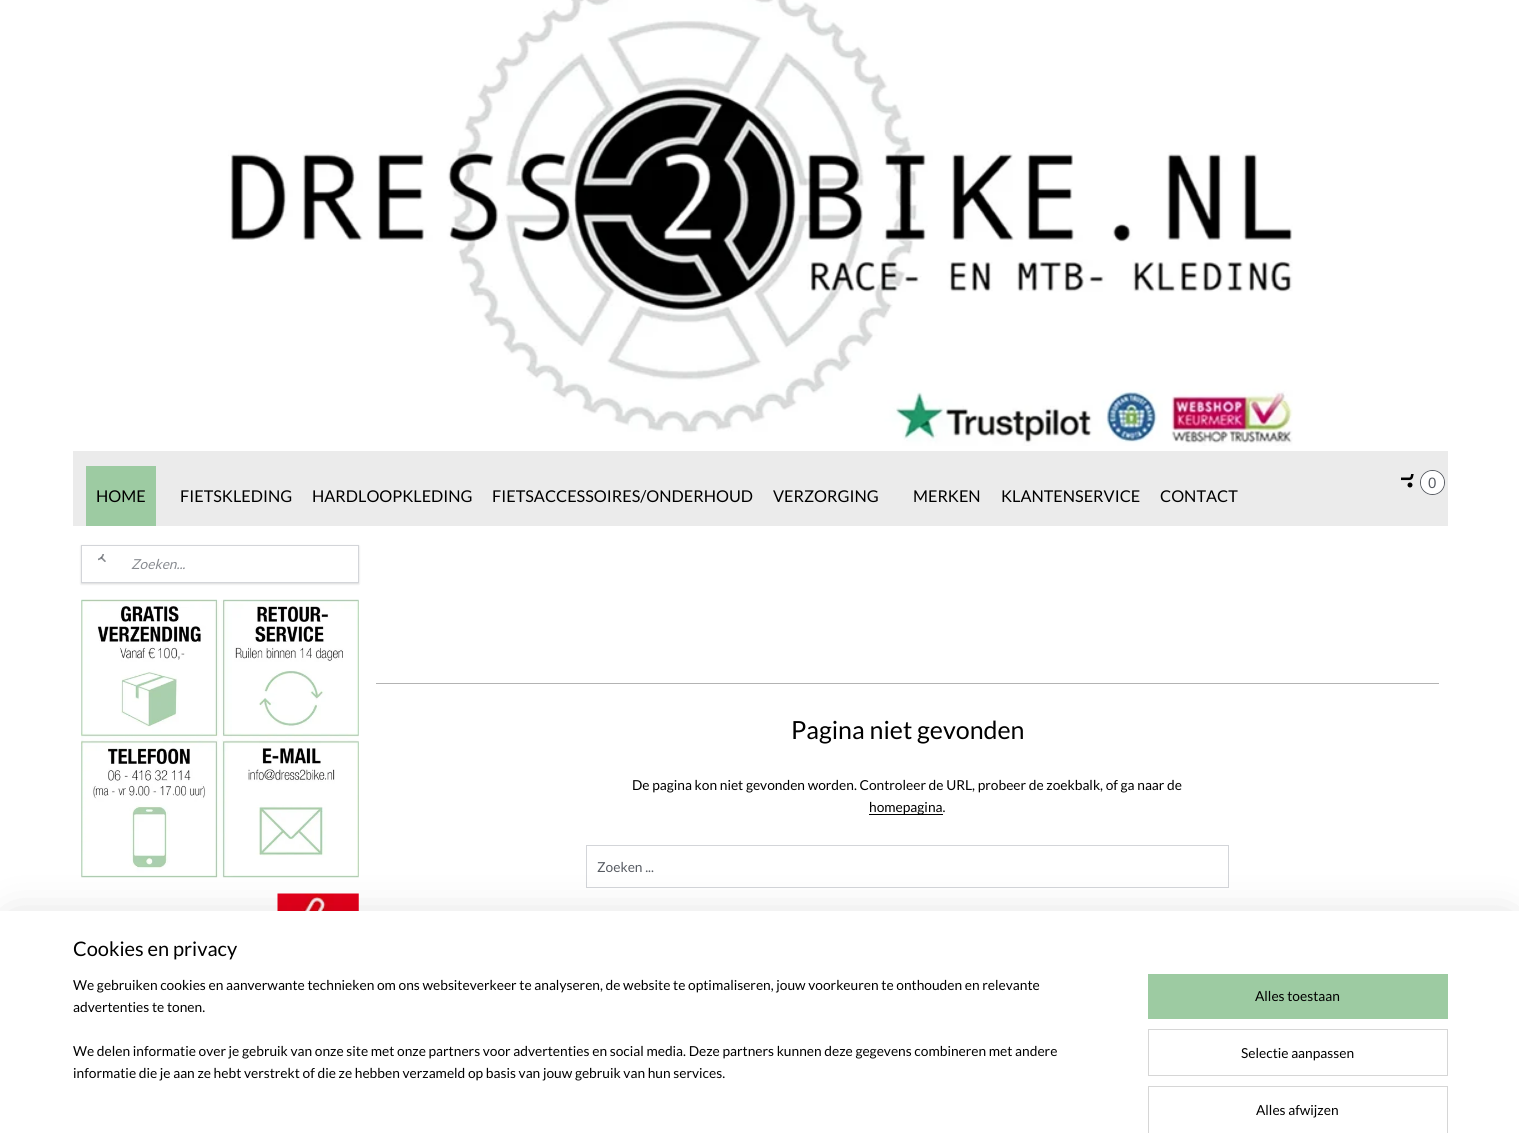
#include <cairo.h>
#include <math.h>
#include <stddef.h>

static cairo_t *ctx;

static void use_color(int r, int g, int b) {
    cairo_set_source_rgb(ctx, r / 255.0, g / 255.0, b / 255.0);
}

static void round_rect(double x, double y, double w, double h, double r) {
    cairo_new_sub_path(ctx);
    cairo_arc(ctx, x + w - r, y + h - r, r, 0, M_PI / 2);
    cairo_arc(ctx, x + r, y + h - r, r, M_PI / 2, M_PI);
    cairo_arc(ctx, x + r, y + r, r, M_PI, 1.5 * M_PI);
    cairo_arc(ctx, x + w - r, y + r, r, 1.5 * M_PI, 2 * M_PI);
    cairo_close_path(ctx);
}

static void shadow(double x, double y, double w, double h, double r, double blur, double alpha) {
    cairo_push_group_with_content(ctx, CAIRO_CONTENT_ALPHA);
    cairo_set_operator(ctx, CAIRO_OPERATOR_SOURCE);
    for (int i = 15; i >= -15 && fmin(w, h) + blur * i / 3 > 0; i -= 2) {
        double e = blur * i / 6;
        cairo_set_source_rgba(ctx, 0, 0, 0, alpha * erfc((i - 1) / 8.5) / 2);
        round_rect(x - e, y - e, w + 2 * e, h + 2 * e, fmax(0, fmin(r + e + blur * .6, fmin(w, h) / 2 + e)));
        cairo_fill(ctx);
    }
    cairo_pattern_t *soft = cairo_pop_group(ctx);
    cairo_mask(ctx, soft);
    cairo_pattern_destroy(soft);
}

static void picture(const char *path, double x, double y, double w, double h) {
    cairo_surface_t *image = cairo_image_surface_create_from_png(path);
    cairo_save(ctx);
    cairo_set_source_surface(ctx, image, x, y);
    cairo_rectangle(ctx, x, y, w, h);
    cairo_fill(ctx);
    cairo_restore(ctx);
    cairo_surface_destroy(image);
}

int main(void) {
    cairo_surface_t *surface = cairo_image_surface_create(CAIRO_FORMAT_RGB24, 1519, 1133);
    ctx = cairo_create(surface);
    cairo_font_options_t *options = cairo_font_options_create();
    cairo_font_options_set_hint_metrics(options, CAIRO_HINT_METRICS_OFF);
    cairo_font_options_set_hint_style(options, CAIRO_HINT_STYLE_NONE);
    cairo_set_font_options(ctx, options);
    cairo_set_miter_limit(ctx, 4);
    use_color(255, 255, 255);
    cairo_paint(ctx);
    picture("img1.png", 228, 0, 1065, 446);
    use_color(235, 235, 235);
    cairo_rectangle(ctx, 73, 451, 1375, 75);
    cairo_fill(ctx);
    picture("img2.png", 1401, 474, 13, 14);
    cairo_arc(ctx, 1432.5, 482.5, 12, 0, 2 * M_PI);
    use_color(87, 91, 98);
    cairo_set_line_width(ctx, 1);
    cairo_stroke(ctx);
    use_color(255, 255, 255);
    cairo_arc(ctx, 1432.5, 482.5, 11.5, 0, 2 * M_PI);
    cairo_fill(ctx);
    cairo_select_font_face(ctx, "Liberation Sans", CAIRO_FONT_SLANT_NORMAL, CAIRO_FONT_WEIGHT_NORMAL);
    cairo_set_font_size(ctx, 15);
    use_color(87, 91, 98);
    cairo_move_to(ctx, 1428, 488);
    cairo_show_text(ctx, "0");
    use_color(157, 203, 162);
    cairo_rectangle(ctx, 86, 466, 70, 60);
    cairo_fill(ctx);
    cairo_select_font_face(ctx, "Lato", CAIRO_FONT_SLANT_NORMAL, CAIRO_FONT_WEIGHT_NORMAL);
    cairo_set_font_size(ctx, 16.25);
    use_color(0, 0, 0);
    cairo_move_to(ctx, 96, 502);
    cairo_show_text(ctx, "HOME");
    cairo_move_to(ctx, 180, 502);
    cairo_show_text(ctx, "FIETSKLEDING");
    cairo_move_to(ctx, 312, 502);
    cairo_show_text(ctx, "HARDLOOPKLEDING");
    cairo_move_to(ctx, 492, 502);
    cairo_show_text(ctx, "FIETSACCESSOIRES/ONDERHOUD");
    cairo_move_to(ctx, 773, 502);
    cairo_show_text(ctx, "VERZORGING");
    cairo_move_to(ctx, 913, 502);
    cairo_show_text(ctx, "MERKEN");
    cairo_move_to(ctx, 1001, 502);
    cairo_show_text(ctx, "KLANTENSERVICE");
    cairo_move_to(ctx, 1160, 502);
    cairo_show_text(ctx, "CONTACT");
    use_color(0, 0, 0);
    shadow(81, 546, 278, 38, 0, 1, 0.15);
    use_color(255, 255, 255);
    cairo_rectangle(ctx, 81.5, 545.5, 277, 37);
    cairo_fill_preserve(ctx);
    use_color(211, 213, 217);
    cairo_stroke(ctx);
    picture("img3.png", 98, 554, 8, 8);
    cairo_select_font_face(ctx, "Lato", CAIRO_FONT_SLANT_ITALIC, CAIRO_FONT_WEIGHT_NORMAL);
    cairo_set_font_size(ctx, 13.75);
    use_color(137, 140, 145);
    cairo_move_to(ctx, 131, 569);
    cairo_show_text(ctx, "Zoeken...");
    picture("img4.png", 81, 599, 278, 279);
    picture("img5.png", 277, 893, 82, 18);
    use_color(179, 179, 179);
    cairo_rectangle(ctx, 376, 683, 1063, 1);
    cairo_fill(ctx);
    cairo_select_font_face(ctx, "Lato", CAIRO_FONT_SLANT_NORMAL, CAIRO_FONT_WEIGHT_NORMAL);
    cairo_set_font_size(ctx, 25);
    use_color(0, 0, 0);
    cairo_move_to(ctx, 791, 739);
    cairo_show_text(ctx, "Pagina niet gevonden");
    cairo_set_font_size(ctx, 13.75);
    cairo_move_to(ctx, 632, 790);
    cairo_show_text(ctx, "De pagina kon niet gevonden worden. Controleer de URL, probeer de zoekbalk, of ga naar de");
    cairo_rectangle(ctx, 869, 814, 74, 1);
    cairo_fill(ctx);
    cairo_move_to(ctx, 869, 812);
    cairo_show_text(ctx, "homepagina.");
    cairo_rectangle(ctx, 586.5, 845.5, 642, 42);
    use_color(211, 213, 217);
    cairo_stroke(ctx);
    use_color(87, 91, 98);
    cairo_move_to(ctx, 597, 872);
    cairo_show_text(ctx, "Zoeken ...");
    use_color(0, 0, 0);
    shadow(13, 924, 1495, 197, 0, 22.5, 0.2);
    use_color(255, 255, 255);
    cairo_rectangle(ctx, 0, 911, 1519, 222);
    cairo_fill(ctx);
    cairo_set_font_size(ctx, 20);
    use_color(0, 0, 0);
    cairo_move_to(ctx, 73, 956);
    cairo_show_text(ctx, "Cookies en privacy");
    cairo_set_font_size(ctx, 13.75);
    cairo_move_to(ctx, 73, 990);
    cairo_show_text(ctx, "We gebruiken cookies en aanverwante technieken om ons websiteverkeer te analyseren, de website te optimaliseren, jouw voorkeuren te onthouden en relevante");
    cairo_move_to(ctx, 73, 1012);
    cairo_show_text(ctx, "advertenties te tonen.");
    cairo_move_to(ctx, 73, 1056);
    cairo_show_text(ctx, "We delen informatie over je gebruik van onze site met onze partners voor advertenties en social media. Deze partners kunnen deze gegevens combineren met andere");
    cairo_move_to(ctx, 73, 1078);
    cairo_show_text(ctx, "informatie die je aan ze hebt verstrekt of die ze hebben verzameld op basis van jouw gebruik van hun services.");
    use_color(157, 203, 162);
    cairo_rectangle(ctx, 1148, 974, 300, 45);
    cairo_fill(ctx);
    use_color(0, 0, 0);
    cairo_move_to(ctx, 1255, 1001);
    cairo_show_text(ctx, "Alles toestaan");
    cairo_rectangle(ctx, 1148.5, 1029.5, 299, 46);
    use_color(214, 214, 214);
    cairo_stroke(ctx);
    use_color(0, 0, 0);
    cairo_move_to(ctx, 1241, 1058);
    cairo_show_text(ctx, "Selectie aanpassen");
    cairo_rectangle(ctx, 1148.5, 1086.5, 299, 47);
    use_color(214, 214, 214);
    cairo_stroke(ctx);
    use_color(0, 0, 0);
    cairo_move_to(ctx, 1256, 1115);
    cairo_show_text(ctx, "Alles afwijzen");
    cairo_surface_write_to_png(surface, "result.png");
    cairo_font_options_destroy(options);
    cairo_destroy(ctx);
    cairo_surface_destroy(surface);
    return 0;
}
